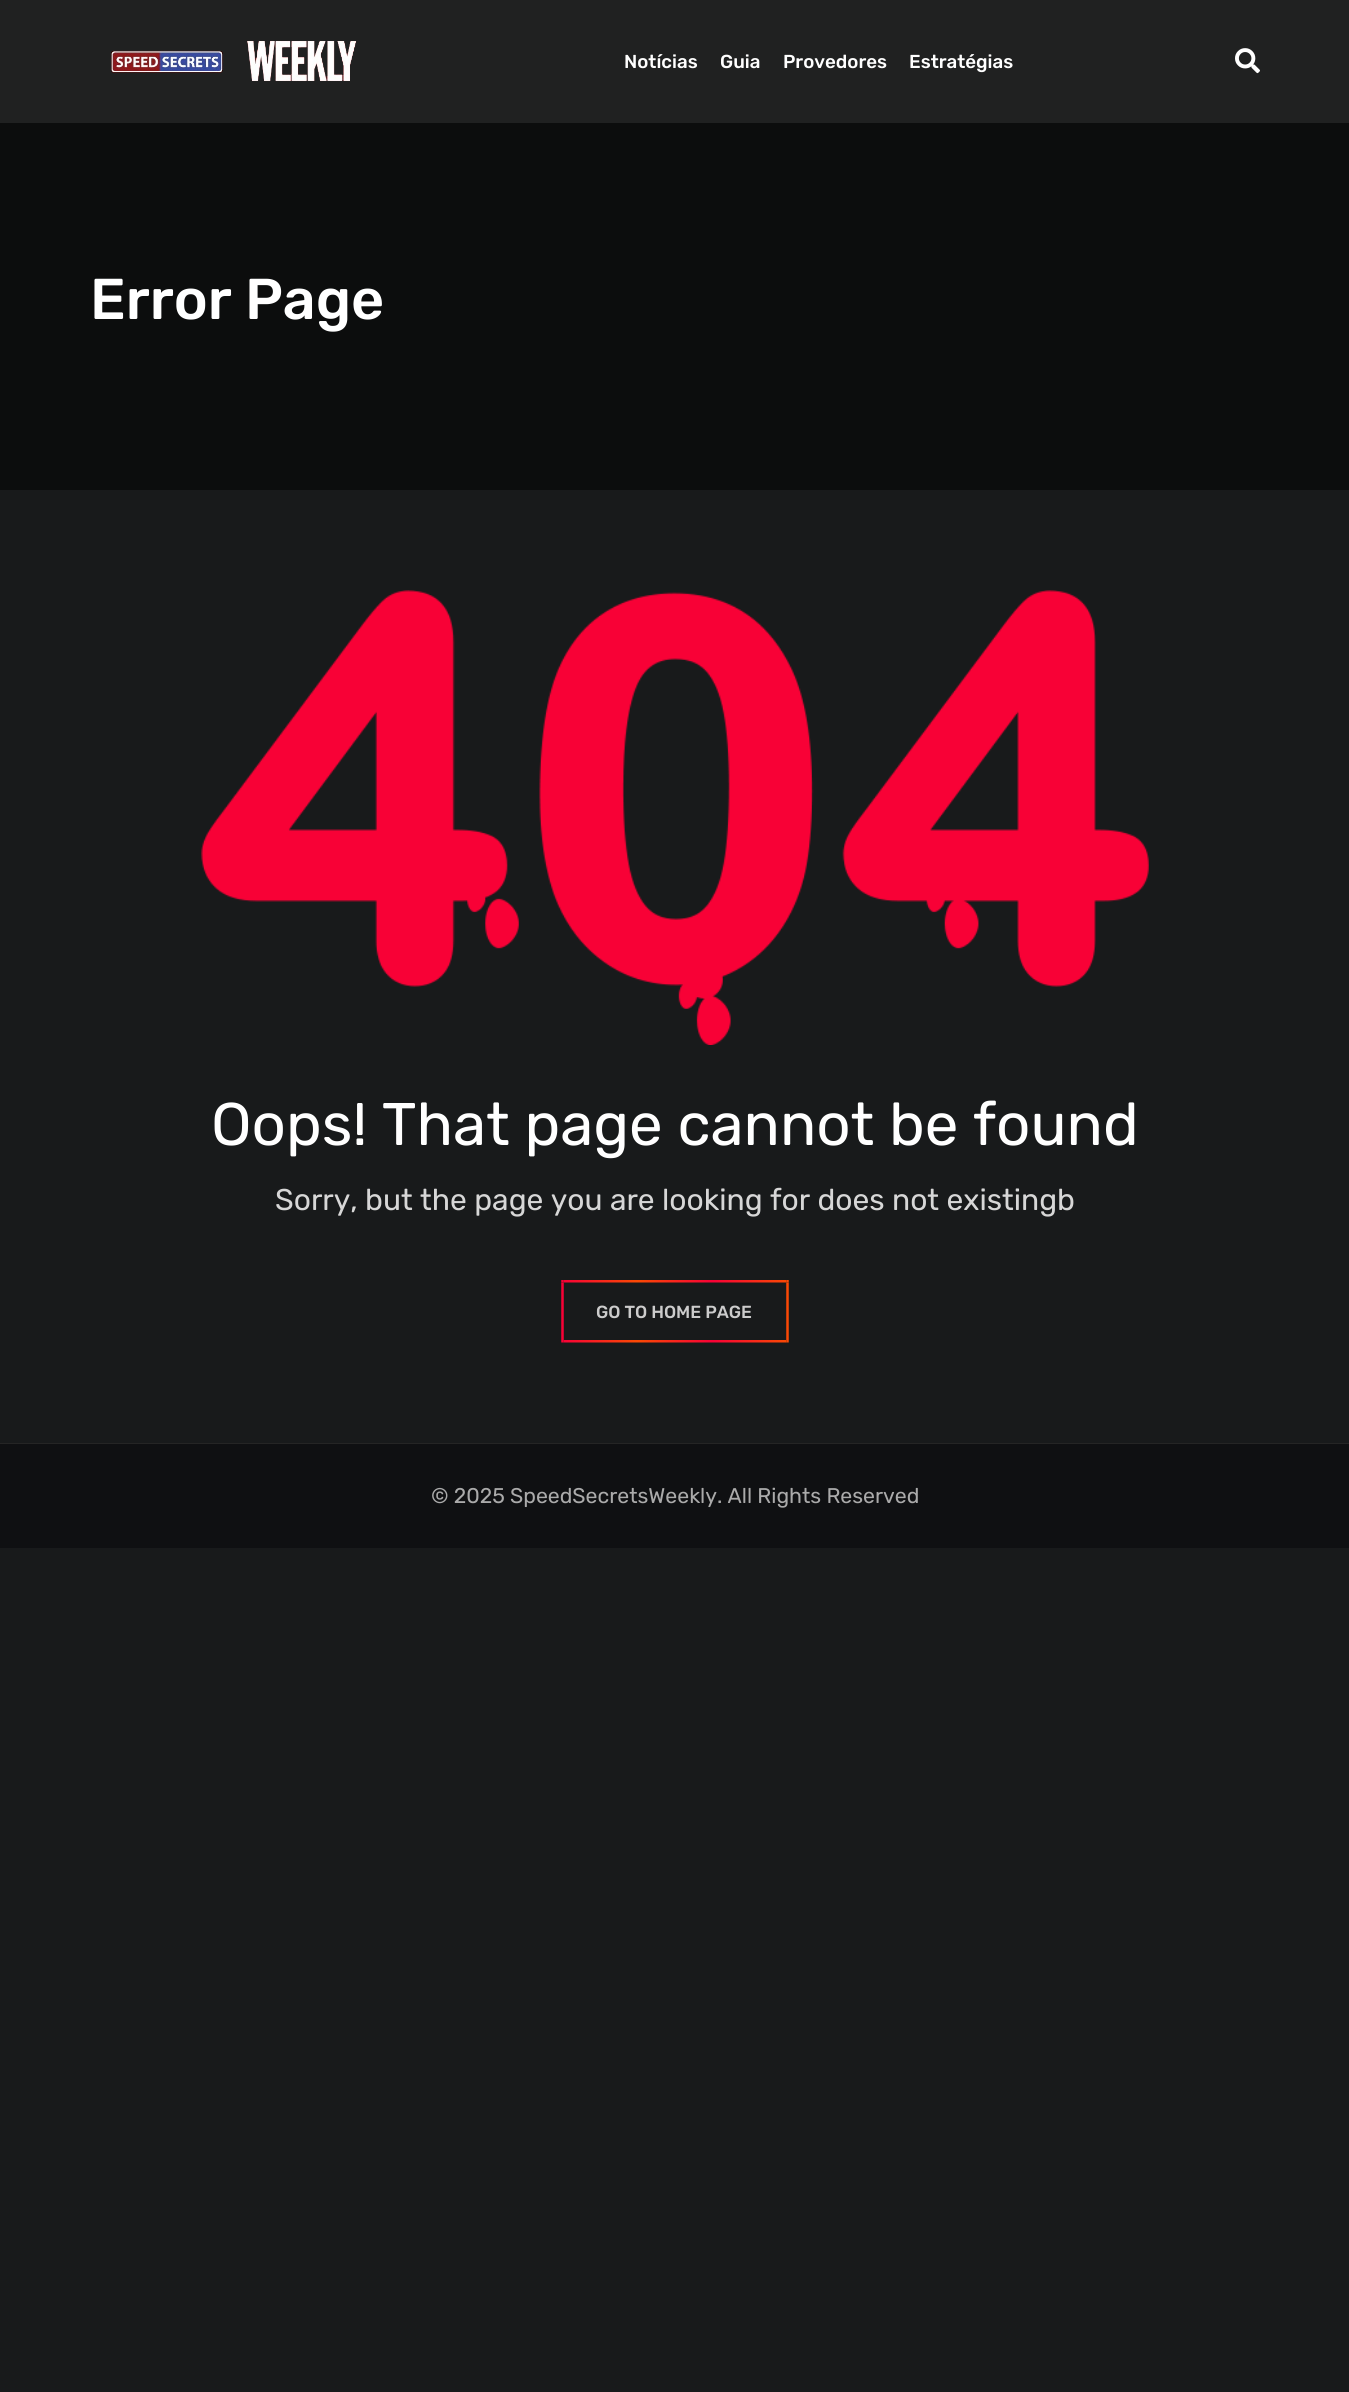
#include <cairo.h>
#include <math.h>
#include <stddef.h>

static cairo_t *ctx;

static void use_color(int r, int g, int b) {
    cairo_set_source_rgb(ctx, r / 255.0, g / 255.0, b / 255.0);
}

static void picture(const char *path, double x, double y, double w, double h) {
    cairo_surface_t *image = cairo_image_surface_create_from_png(path);
    cairo_save(ctx);
    cairo_set_source_surface(ctx, image, x, y);
    cairo_rectangle(ctx, x, y, w, h);
    cairo_fill(ctx);
    cairo_restore(ctx);
    cairo_surface_destroy(image);
}

int main(void) {
    cairo_surface_t *surface = cairo_image_surface_create(CAIRO_FORMAT_RGB24, 1349, 2392);
    ctx = cairo_create(surface);
    cairo_font_options_t *options = cairo_font_options_create();
    cairo_font_options_set_hint_metrics(options, CAIRO_HINT_METRICS_OFF);
    cairo_font_options_set_hint_style(options, CAIRO_HINT_STYLE_NONE);
    cairo_set_font_options(ctx, options);
    cairo_set_miter_limit(ctx, 4);
    use_color(24, 26, 27);
    cairo_paint(ctx);
    use_color(32, 33, 33);
    cairo_rectangle(ctx, 0, 0, 1349, 123);
    cairo_fill(ctx);
    picture("img1.png", 110, 40, 247, 42);
    cairo_select_font_face(ctx, "Rubik Medium", CAIRO_FONT_SLANT_NORMAL, CAIRO_FONT_WEIGHT_NORMAL);
    cairo_set_font_size(ctx, 18.75);
    use_color(255, 255, 255);
    cairo_move_to(ctx, 624, 68);
    cairo_show_text(ctx, "Notícias");
    cairo_move_to(ctx, 720, 68);
    cairo_show_text(ctx, "Guia");
    cairo_move_to(ctx, 783, 68);
    cairo_show_text(ctx, "Provedores");
    cairo_move_to(ctx, 909, 68);
    cairo_show_text(ctx, "Estratégias");
    picture("img2.png", 1235, 48, 25, 26);
    use_color(12, 13, 13);
    cairo_rectangle(ctx, 0, 123, 1349, 367);
    cairo_fill(ctx);
    cairo_set_font_size(ctx, 57.5);
    use_color(255, 255, 255);
    cairo_move_to(ctx, 90, 319);
    cairo_show_text(ctx, "Error Page");
    picture("img3.png", 201, 590, 948, 455);
    cairo_select_font_face(ctx, "Rubik", CAIRO_FONT_SLANT_NORMAL, CAIRO_FONT_WEIGHT_NORMAL);
    cairo_set_font_size(ctx, 60);
    cairo_move_to(ctx, 211, 1145);
    cairo_show_text(ctx, "Oops! That page cannot be found");
    cairo_set_font_size(ctx, 30);
    use_color(215, 215, 215);
    cairo_move_to(ctx, 275, 1210);
    cairo_show_text(ctx, "Sorry, but the page you are looking for does not existingb");
    picture("img4.png", 561, 1280, 228, 63);
    cairo_select_font_face(ctx, "Rubik Medium", CAIRO_FONT_SLANT_NORMAL, CAIRO_FONT_WEIGHT_NORMAL);
    cairo_set_font_size(ctx, 17.5);
    use_color(204, 204, 204);
    cairo_move_to(ctx, 596, 1318);
    cairo_show_text(ctx, "GO TO HOME PAGE");
    use_color(15, 16, 18);
    cairo_rectangle(ctx, 0, 1444, 1349, 104);
    cairo_fill(ctx);
    use_color(37, 37, 37);
    cairo_rectangle(ctx, 0, 1443, 1349, 1);
    cairo_fill(ctx);
    cairo_select_font_face(ctx, "Rubik", CAIRO_FONT_SLANT_NORMAL, CAIRO_FONT_WEIGHT_NORMAL);
    cairo_set_font_size(ctx, 21.25);
    use_color(170, 170, 170);
    cairo_move_to(ctx, 431, 1503);
    cairo_show_text(ctx, "© 2025 SpeedSecretsWeekly. All Rights Reserved");
    cairo_surface_write_to_png(surface, "result.png");
    cairo_font_options_destroy(options);
    cairo_destroy(ctx);
    cairo_surface_destroy(surface);
    return 0;
}
